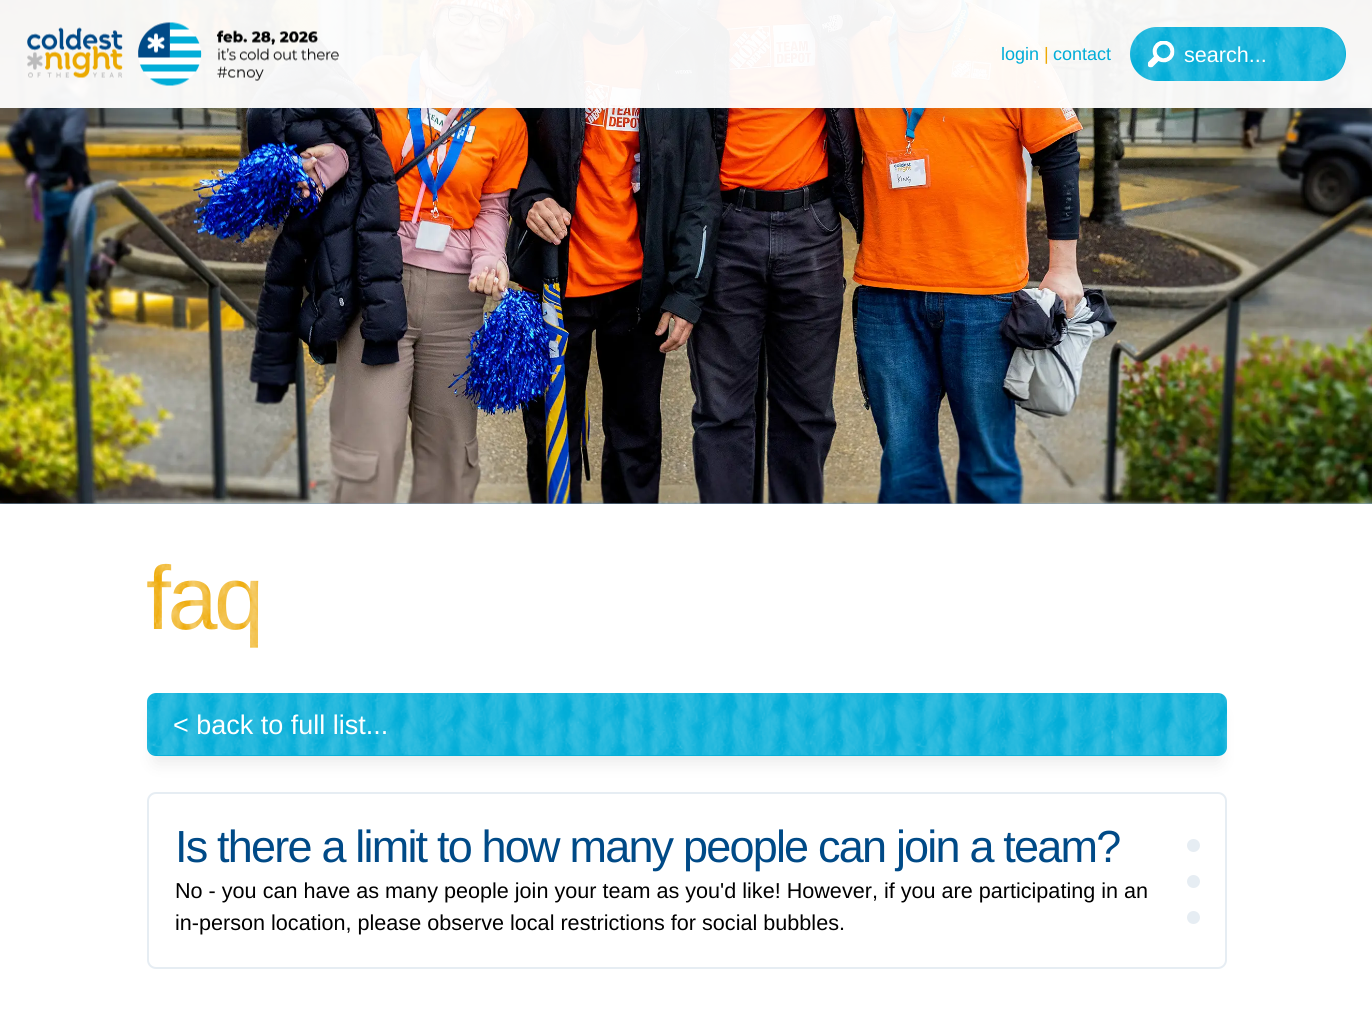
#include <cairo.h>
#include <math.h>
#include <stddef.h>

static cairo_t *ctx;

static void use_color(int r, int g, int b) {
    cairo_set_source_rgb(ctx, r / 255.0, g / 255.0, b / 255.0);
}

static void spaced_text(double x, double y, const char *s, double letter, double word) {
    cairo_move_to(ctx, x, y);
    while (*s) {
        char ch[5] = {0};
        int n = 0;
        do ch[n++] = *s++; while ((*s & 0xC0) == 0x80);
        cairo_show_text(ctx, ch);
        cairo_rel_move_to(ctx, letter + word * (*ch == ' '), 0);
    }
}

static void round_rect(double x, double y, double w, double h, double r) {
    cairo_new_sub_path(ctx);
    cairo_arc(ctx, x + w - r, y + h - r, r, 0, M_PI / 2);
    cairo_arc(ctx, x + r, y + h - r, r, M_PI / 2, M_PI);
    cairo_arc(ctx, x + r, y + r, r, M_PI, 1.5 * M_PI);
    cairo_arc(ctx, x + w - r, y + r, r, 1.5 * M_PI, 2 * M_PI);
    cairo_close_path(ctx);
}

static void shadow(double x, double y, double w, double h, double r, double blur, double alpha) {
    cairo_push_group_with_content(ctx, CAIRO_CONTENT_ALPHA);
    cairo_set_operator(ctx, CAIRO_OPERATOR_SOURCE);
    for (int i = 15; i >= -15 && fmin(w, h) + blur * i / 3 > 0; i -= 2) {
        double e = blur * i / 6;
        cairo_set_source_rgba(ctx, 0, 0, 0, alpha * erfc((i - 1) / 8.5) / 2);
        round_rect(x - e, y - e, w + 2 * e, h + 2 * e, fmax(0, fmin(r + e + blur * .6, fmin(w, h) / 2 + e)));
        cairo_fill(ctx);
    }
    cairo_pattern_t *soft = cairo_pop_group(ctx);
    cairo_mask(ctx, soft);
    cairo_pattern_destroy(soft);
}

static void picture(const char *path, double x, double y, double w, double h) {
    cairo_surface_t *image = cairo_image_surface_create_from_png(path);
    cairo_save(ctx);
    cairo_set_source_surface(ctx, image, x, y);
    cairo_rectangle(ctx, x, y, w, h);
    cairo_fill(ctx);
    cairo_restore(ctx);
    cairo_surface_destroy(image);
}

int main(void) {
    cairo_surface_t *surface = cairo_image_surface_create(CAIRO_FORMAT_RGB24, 1372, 1035);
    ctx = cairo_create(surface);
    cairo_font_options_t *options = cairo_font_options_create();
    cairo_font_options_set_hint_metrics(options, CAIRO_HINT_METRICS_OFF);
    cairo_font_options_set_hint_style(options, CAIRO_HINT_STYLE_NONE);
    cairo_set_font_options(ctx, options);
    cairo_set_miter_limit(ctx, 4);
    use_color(255, 255, 255);
    cairo_paint(ctx);
    use_color(128, 165, 195);
    cairo_rectangle(ctx, 0, 503, 1372, 1);
    cairo_fill(ctx);
    picture("img1.png", 0, 0, 1372, 504);
    cairo_save(ctx);
    cairo_rectangle(ctx, 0, 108, 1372, 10);
    cairo_clip(ctx);
    use_color(0, 74, 135);
    shadow(0, 0, 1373, 108, 0, 9, 0.15);
    cairo_restore(ctx);
    cairo_set_source_rgba(ctx, 1, 1, 1, 0.95);
    cairo_rectangle(ctx, 0, 0, 1372, 108);
    cairo_fill(ctx);
    picture("img2.png", 27, 22, 312, 64);
    cairo_select_font_face(ctx, "Liberation Sans", CAIRO_FONT_SLANT_NORMAL, CAIRO_FONT_WEIGHT_NORMAL);
    cairo_set_font_size(ctx, 18);
    use_color(1, 173, 216);
    cairo_move_to(ctx, 1001, 60);
    cairo_show_text(ctx, "login");
    use_color(238, 169, 4);
    cairo_move_to(ctx, 1044, 60);
    cairo_show_text(ctx, "|");
    use_color(1, 173, 216);
    cairo_move_to(ctx, 1053, 60);
    cairo_show_text(ctx, "contact");
    round_rect(1130, 27, 216, 54, 27);
    cairo_fill(ctx);
    picture("img3.png", 1130, 27, 215, 54);
    cairo_set_font_size(ctx, 21.6);
    use_color(255, 255, 255);
    cairo_move_to(ctx, 1184, 62);
    cairo_show_text(ctx, "search...");
    cairo_set_font_size(ctx, 90);
    use_color(238, 169, 4);
    spaced_text(146, 629, "faq", -3.5, 0);
    picture("img4.png", 147, 563, 112, 85);
    use_color(0, 0, 0);
    shadow(156, 716, 1062, 45, 0, 9, 0.1);
    use_color(1, 173, 216);
    round_rect(147, 693, 1080, 63, 9);
    cairo_fill(ctx);
    picture("img5.png", 147, 693, 1080, 63);
    cairo_set_font_size(ctx, 27);
    use_color(255, 255, 255);
    cairo_move_to(ctx, 173, 734);
    cairo_show_text(ctx, "< back to full list...");
    round_rect(148, 793, 1078, 175, 8);
    use_color(230, 237, 243);
    cairo_stroke(ctx);
    cairo_set_font_size(ctx, 45);
    use_color(0, 74, 135);
    spaced_text(175, 862, "Is there a limit to how many people can join a team?", -1.8, 0);
    use_color(230, 237, 243);
    cairo_new_path(ctx);
    cairo_arc(ctx, 1193.5, 845.5, 6.5, 0, 2 * M_PI);
    cairo_fill(ctx);
    cairo_arc(ctx, 1193.5, 881.5, 6.5, 0, 2 * M_PI);
    cairo_fill(ctx);
    cairo_arc(ctx, 1193.5, 917.5, 6.5, 0, 2 * M_PI);
    cairo_fill(ctx);
    cairo_set_font_size(ctx, 21.6);
    use_color(0, 0, 0);
    cairo_move_to(ctx, 175, 898);
    cairo_show_text(ctx, "No - you can have as many people join your team as you'd like! However, if you are participating in an");
    cairo_move_to(ctx, 175, 930);
    cairo_show_text(ctx, "in-person location, please observe local restrictions for social bubbles.");
    cairo_surface_write_to_png(surface, "result.png");
    cairo_font_options_destroy(options);
    cairo_destroy(ctx);
    cairo_surface_destroy(surface);
    return 0;
}
